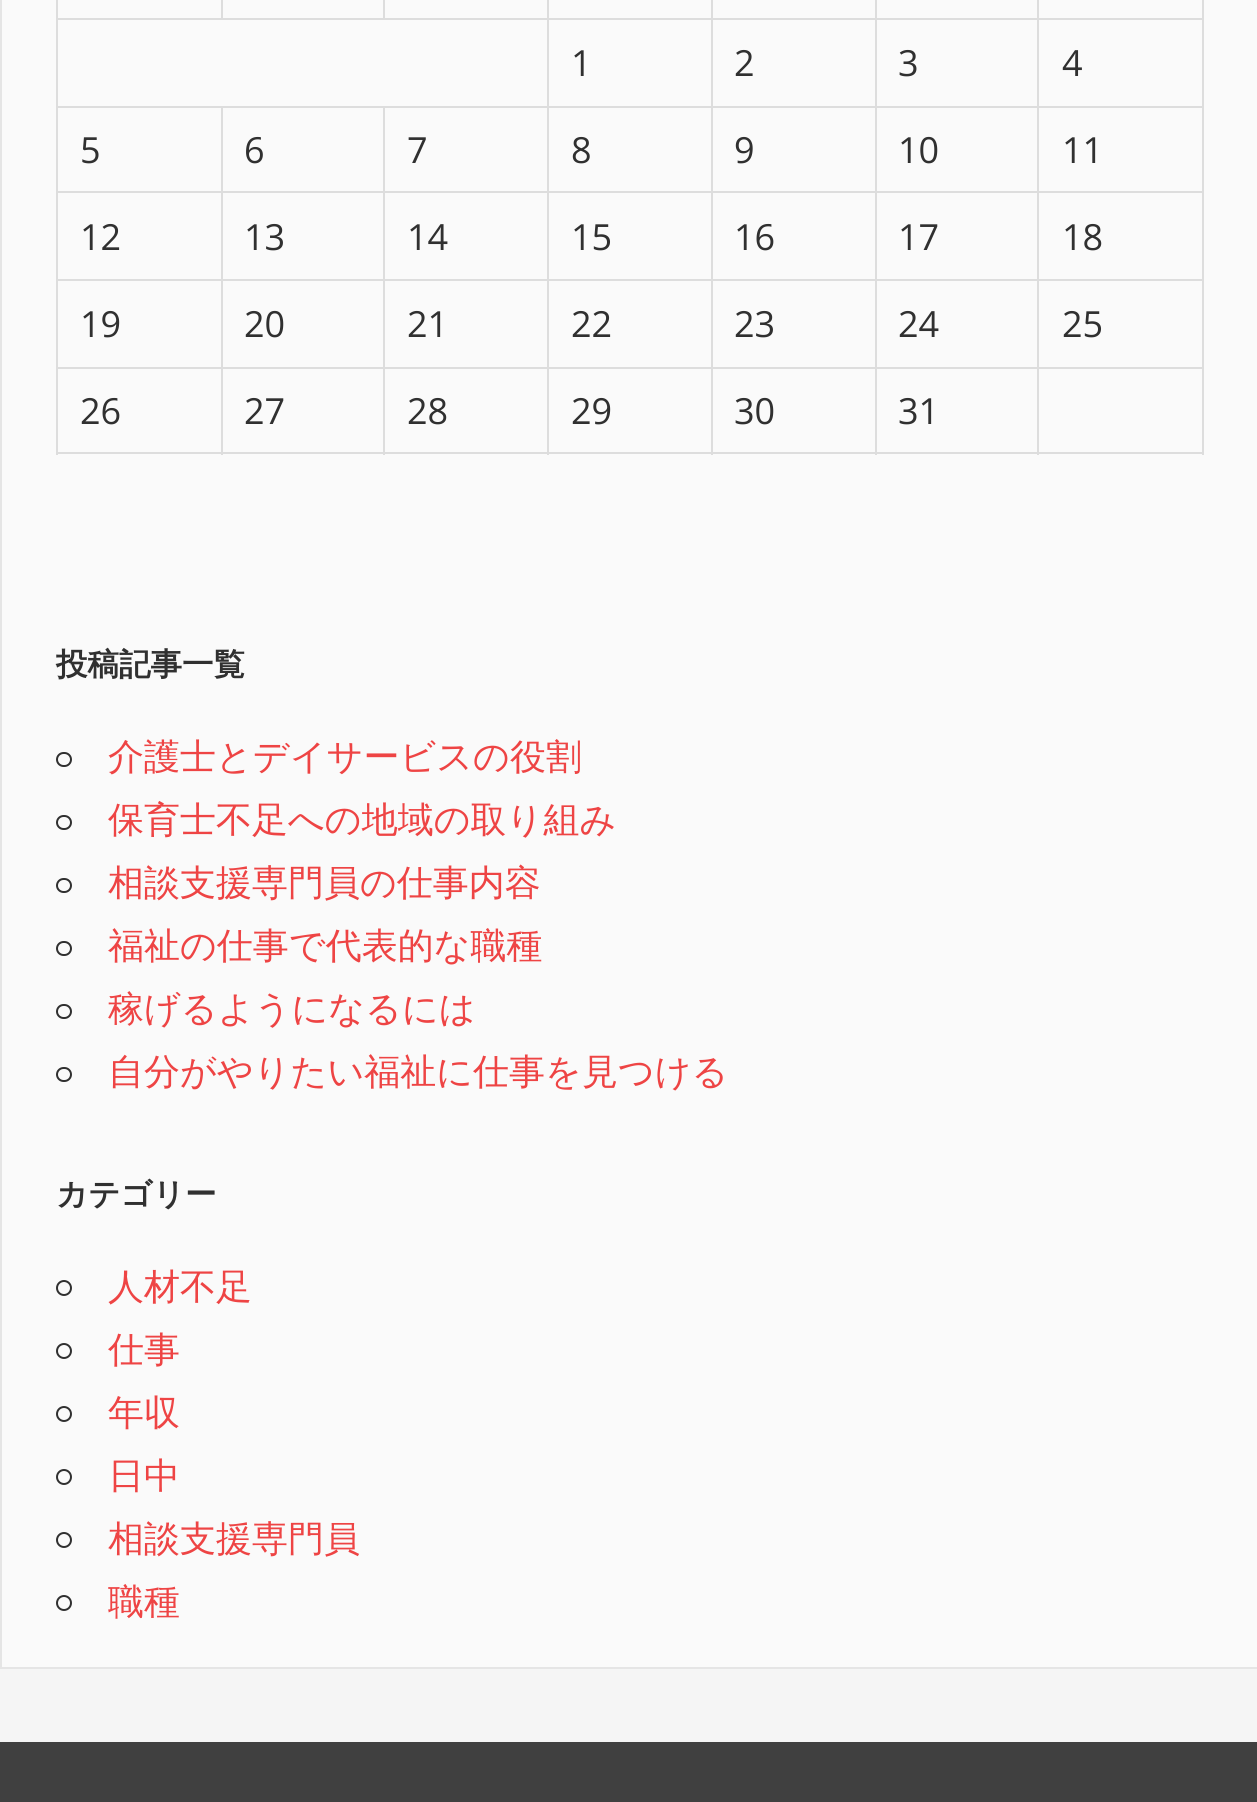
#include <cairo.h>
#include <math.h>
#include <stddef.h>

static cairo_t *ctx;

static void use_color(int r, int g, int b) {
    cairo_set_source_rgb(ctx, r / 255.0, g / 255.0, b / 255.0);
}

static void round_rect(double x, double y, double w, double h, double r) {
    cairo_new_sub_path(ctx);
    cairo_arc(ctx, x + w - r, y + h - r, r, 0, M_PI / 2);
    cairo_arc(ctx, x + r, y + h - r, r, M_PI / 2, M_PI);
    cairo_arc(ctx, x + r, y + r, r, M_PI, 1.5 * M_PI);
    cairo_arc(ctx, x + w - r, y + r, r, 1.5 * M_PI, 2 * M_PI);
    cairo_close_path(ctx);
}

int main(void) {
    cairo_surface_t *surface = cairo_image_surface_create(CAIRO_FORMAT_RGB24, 1257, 1802);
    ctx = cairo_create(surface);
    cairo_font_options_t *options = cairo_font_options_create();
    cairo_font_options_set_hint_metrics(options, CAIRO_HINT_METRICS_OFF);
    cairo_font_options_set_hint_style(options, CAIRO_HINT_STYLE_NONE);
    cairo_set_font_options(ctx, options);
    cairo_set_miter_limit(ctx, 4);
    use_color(245, 245, 245);
    cairo_paint(ctx);
    use_color(250, 250, 250);
    cairo_rectangle(ctx, 2, 0, 1255, 1667);
    cairo_fill(ctx);
    use_color(229, 229, 229);
    cairo_rectangle(ctx, 0, 0, 2, 1667);
    cairo_fill(ctx);
    use_color(221, 221, 221);
    cairo_rectangle(ctx, 1037, 18, 167, 2);
    cairo_fill(ctx);
    cairo_rectangle(ctx, 1037, 106, 167, 2);
    cairo_fill(ctx);
    cairo_rectangle(ctx, 1037, 191, 167, 2);
    cairo_fill(ctx);
    cairo_rectangle(ctx, 1037, 279, 167, 2);
    cairo_fill(ctx);
    cairo_rectangle(ctx, 1037, 367, 167, 2);
    cairo_fill(ctx);
    cairo_rectangle(ctx, 1202, 367, 2, 88);
    cairo_fill(ctx);
    cairo_rectangle(ctx, 1037, 452, 167, 2);
    cairo_fill(ctx);
    cairo_rectangle(ctx, 1037, 367, 2, 88);
    cairo_fill(ctx);
    cairo_rectangle(ctx, 875, 367, 165, 2);
    cairo_fill(ctx);
    cairo_rectangle(ctx, 1037, 279, 2, 90);
    cairo_fill(ctx);
    cairo_rectangle(ctx, 875, 279, 165, 2);
    cairo_fill(ctx);
    cairo_rectangle(ctx, 1037, 191, 2, 90);
    cairo_fill(ctx);
    cairo_rectangle(ctx, 875, 191, 165, 2);
    cairo_fill(ctx);
    cairo_rectangle(ctx, 1037, 106, 2, 88);
    cairo_fill(ctx);
    cairo_rectangle(ctx, 875, 106, 165, 2);
    cairo_fill(ctx);
    cairo_rectangle(ctx, 1037, 18, 2, 90);
    cairo_fill(ctx);
    cairo_rectangle(ctx, 875, 18, 165, 2);
    cairo_fill(ctx);
    cairo_rectangle(ctx, 875, 452, 165, 2);
    cairo_fill(ctx);
    cairo_rectangle(ctx, 875, 367, 2, 88);
    cairo_fill(ctx);
    cairo_rectangle(ctx, 711, 367, 167, 2);
    cairo_fill(ctx);
    cairo_rectangle(ctx, 875, 279, 2, 90);
    cairo_fill(ctx);
    cairo_rectangle(ctx, 711, 279, 167, 2);
    cairo_fill(ctx);
    cairo_rectangle(ctx, 875, 191, 2, 90);
    cairo_fill(ctx);
    cairo_rectangle(ctx, 711, 191, 167, 2);
    cairo_fill(ctx);
    cairo_rectangle(ctx, 875, 106, 2, 88);
    cairo_fill(ctx);
    cairo_rectangle(ctx, 711, 106, 167, 2);
    cairo_fill(ctx);
    cairo_rectangle(ctx, 875, 18, 2, 90);
    cairo_fill(ctx);
    cairo_rectangle(ctx, 711, 18, 167, 2);
    cairo_fill(ctx);
    cairo_rectangle(ctx, 711, 452, 167, 2);
    cairo_fill(ctx);
    cairo_rectangle(ctx, 711, 367, 2, 88);
    cairo_fill(ctx);
    cairo_rectangle(ctx, 547, 367, 166, 2);
    cairo_fill(ctx);
    cairo_rectangle(ctx, 711, 279, 2, 90);
    cairo_fill(ctx);
    cairo_rectangle(ctx, 547, 279, 166, 2);
    cairo_fill(ctx);
    cairo_rectangle(ctx, 711, 191, 2, 90);
    cairo_fill(ctx);
    cairo_rectangle(ctx, 547, 191, 166, 2);
    cairo_fill(ctx);
    cairo_rectangle(ctx, 711, 106, 2, 88);
    cairo_fill(ctx);
    cairo_rectangle(ctx, 547, 106, 166, 2);
    cairo_fill(ctx);
    cairo_rectangle(ctx, 711, 18, 2, 90);
    cairo_fill(ctx);
    cairo_rectangle(ctx, 547, 18, 166, 2);
    cairo_fill(ctx);
    cairo_rectangle(ctx, 547, 452, 166, 2);
    cairo_fill(ctx);
    cairo_rectangle(ctx, 547, 367, 2, 88);
    cairo_fill(ctx);
    cairo_rectangle(ctx, 383, 367, 166, 2);
    cairo_fill(ctx);
    cairo_rectangle(ctx, 547, 279, 2, 90);
    cairo_fill(ctx);
    cairo_rectangle(ctx, 383, 279, 166, 2);
    cairo_fill(ctx);
    cairo_rectangle(ctx, 547, 191, 2, 90);
    cairo_fill(ctx);
    cairo_rectangle(ctx, 383, 191, 166, 2);
    cairo_fill(ctx);
    cairo_rectangle(ctx, 547, 106, 2, 88);
    cairo_fill(ctx);
    cairo_rectangle(ctx, 383, 106, 166, 2);
    cairo_fill(ctx);
    cairo_rectangle(ctx, 547, 18, 2, 90);
    cairo_fill(ctx);
    cairo_rectangle(ctx, 56, 18, 493, 2);
    cairo_fill(ctx);
    cairo_rectangle(ctx, 221, 0, 2, 20);
    cairo_fill(ctx);
    cairo_rectangle(ctx, 383, 0, 2, 20);
    cairo_fill(ctx);
    cairo_rectangle(ctx, 547, 0, 2, 20);
    cairo_fill(ctx);
    cairo_rectangle(ctx, 711, 0, 2, 20);
    cairo_fill(ctx);
    cairo_rectangle(ctx, 875, 0, 2, 20);
    cairo_fill(ctx);
    cairo_rectangle(ctx, 1037, 0, 2, 20);
    cairo_fill(ctx);
    cairo_rectangle(ctx, 383, 452, 166, 2);
    cairo_fill(ctx);
    cairo_rectangle(ctx, 383, 367, 2, 88);
    cairo_fill(ctx);
    cairo_rectangle(ctx, 221, 367, 164, 2);
    cairo_fill(ctx);
    cairo_rectangle(ctx, 383, 279, 2, 90);
    cairo_fill(ctx);
    cairo_rectangle(ctx, 221, 279, 164, 2);
    cairo_fill(ctx);
    cairo_rectangle(ctx, 383, 191, 2, 90);
    cairo_fill(ctx);
    cairo_rectangle(ctx, 221, 191, 164, 2);
    cairo_fill(ctx);
    cairo_rectangle(ctx, 383, 106, 2, 88);
    cairo_fill(ctx);
    cairo_rectangle(ctx, 221, 106, 164, 2);
    cairo_fill(ctx);
    cairo_rectangle(ctx, 221, 452, 164, 2);
    cairo_fill(ctx);
    cairo_rectangle(ctx, 221, 367, 2, 88);
    cairo_fill(ctx);
    cairo_rectangle(ctx, 56, 367, 167, 2);
    cairo_fill(ctx);
    cairo_rectangle(ctx, 221, 279, 2, 90);
    cairo_fill(ctx);
    cairo_rectangle(ctx, 56, 279, 167, 2);
    cairo_fill(ctx);
    cairo_rectangle(ctx, 221, 191, 2, 90);
    cairo_fill(ctx);
    cairo_rectangle(ctx, 56, 191, 167, 2);
    cairo_fill(ctx);
    cairo_rectangle(ctx, 221, 106, 2, 88);
    cairo_fill(ctx);
    cairo_rectangle(ctx, 56, 106, 167, 2);
    cairo_fill(ctx);
    cairo_rectangle(ctx, 56, 452, 167, 2);
    cairo_fill(ctx);
    cairo_rectangle(ctx, 56, 367, 2, 88);
    cairo_fill(ctx);
    cairo_rectangle(ctx, 56, 279, 2, 90);
    cairo_fill(ctx);
    cairo_rectangle(ctx, 56, 191, 2, 90);
    cairo_fill(ctx);
    cairo_rectangle(ctx, 56, 106, 2, 88);
    cairo_fill(ctx);
    cairo_rectangle(ctx, 56, 0, 2, 108);
    cairo_fill(ctx);
    cairo_select_font_face(ctx, "Open Sans", CAIRO_FONT_SLANT_NORMAL, CAIRO_FONT_WEIGHT_NORMAL);
    cairo_set_font_size(ctx, 36);
    use_color(48, 48, 48);
    cairo_move_to(ctx, 571, 76);
    cairo_show_text(ctx, "1");
    cairo_move_to(ctx, 734, 76);
    cairo_show_text(ctx, "2");
    cairo_move_to(ctx, 898, 76);
    cairo_show_text(ctx, "3");
    use_color(221, 221, 221);
    cairo_rectangle(ctx, 1202, 279, 2, 90);
    cairo_fill(ctx);
    cairo_rectangle(ctx, 1202, 191, 2, 90);
    cairo_fill(ctx);
    cairo_rectangle(ctx, 1202, 106, 2, 88);
    cairo_fill(ctx);
    cairo_rectangle(ctx, 1202, 0, 2, 108);
    cairo_fill(ctx);
    use_color(48, 48, 48);
    cairo_move_to(ctx, 1062, 76);
    cairo_show_text(ctx, "4");
    cairo_move_to(ctx, 80, 163);
    cairo_show_text(ctx, "5");
    cairo_move_to(ctx, 244, 163);
    cairo_show_text(ctx, "6");
    cairo_move_to(ctx, 407, 163);
    cairo_show_text(ctx, "7");
    cairo_move_to(ctx, 571, 163);
    cairo_show_text(ctx, "8");
    cairo_move_to(ctx, 734, 163);
    cairo_show_text(ctx, "9");
    cairo_move_to(ctx, 898, 163);
    cairo_show_text(ctx, "10");
    cairo_move_to(ctx, 1062, 163);
    cairo_show_text(ctx, "11");
    cairo_move_to(ctx, 80, 250);
    cairo_show_text(ctx, "12");
    cairo_move_to(ctx, 244, 250);
    cairo_show_text(ctx, "13");
    cairo_move_to(ctx, 407, 250);
    cairo_show_text(ctx, "14");
    cairo_move_to(ctx, 571, 250);
    cairo_show_text(ctx, "15");
    cairo_move_to(ctx, 734, 250);
    cairo_show_text(ctx, "16");
    cairo_move_to(ctx, 898, 250);
    cairo_show_text(ctx, "17");
    cairo_move_to(ctx, 1062, 250);
    cairo_show_text(ctx, "18");
    cairo_move_to(ctx, 80, 337);
    cairo_show_text(ctx, "19");
    cairo_move_to(ctx, 244, 337);
    cairo_show_text(ctx, "20");
    cairo_move_to(ctx, 407, 337);
    cairo_show_text(ctx, "21");
    cairo_move_to(ctx, 571, 337);
    cairo_show_text(ctx, "22");
    cairo_move_to(ctx, 734, 337);
    cairo_show_text(ctx, "23");
    cairo_move_to(ctx, 898, 337);
    cairo_show_text(ctx, "24");
    cairo_move_to(ctx, 1062, 337);
    cairo_show_text(ctx, "25");
    cairo_move_to(ctx, 80, 424);
    cairo_show_text(ctx, "26");
    cairo_move_to(ctx, 244, 424);
    cairo_show_text(ctx, "27");
    cairo_move_to(ctx, 407, 424);
    cairo_show_text(ctx, "28");
    cairo_move_to(ctx, 571, 424);
    cairo_show_text(ctx, "29");
    cairo_move_to(ctx, 734, 424);
    cairo_show_text(ctx, "30");
    cairo_move_to(ctx, 898, 424);
    cairo_show_text(ctx, "31");
    cairo_select_font_face(ctx, "WenQuanYi Zen Hei", CAIRO_FONT_SLANT_NORMAL, CAIRO_FONT_WEIGHT_BOLD);
    cairo_set_font_size(ctx, 31.5);
    cairo_move_to(ctx, 56, 675);
    cairo_show_text(ctx, "投稿記事一覧");
    round_rect(57, 753, 14, 13, 6.5);
    cairo_stroke(ctx);
    cairo_select_font_face(ctx, "WenQuanYi Zen Hei Medium", CAIRO_FONT_SLANT_NORMAL, CAIRO_FONT_WEIGHT_NORMAL);
    cairo_set_font_size(ctx, 36);
    use_color(238, 68, 68);
    cairo_move_to(ctx, 108, 769);
    cairo_show_text(ctx, "介護士とデイサービスの役割");
    round_rect(57, 816, 14, 13, 6.5);
    use_color(48, 48, 48);
    cairo_stroke(ctx);
    use_color(238, 68, 68);
    cairo_move_to(ctx, 108, 832);
    cairo_show_text(ctx, "保育士不足への地域の取り組み");
    round_rect(57, 879, 14, 13, 6.5);
    use_color(48, 48, 48);
    cairo_stroke(ctx);
    use_color(238, 68, 68);
    cairo_move_to(ctx, 108, 895);
    cairo_show_text(ctx, "相談支援専門員の仕事内容");
    round_rect(57, 942, 14, 13, 6.5);
    use_color(48, 48, 48);
    cairo_stroke(ctx);
    use_color(238, 68, 68);
    cairo_move_to(ctx, 108, 958);
    cairo_show_text(ctx, "福祉の仕事で代表的な職種");
    round_rect(57, 1005, 14, 13, 6.5);
    use_color(48, 48, 48);
    cairo_stroke(ctx);
    use_color(238, 68, 68);
    cairo_move_to(ctx, 108, 1021);
    cairo_show_text(ctx, "稼げるようになるには");
    round_rect(57, 1068, 14, 13, 6.5);
    use_color(48, 48, 48);
    cairo_stroke(ctx);
    use_color(238, 68, 68);
    cairo_move_to(ctx, 108, 1084);
    cairo_show_text(ctx, "自分がやりたい福祉に仕事を見つける");
    cairo_select_font_face(ctx, "WenQuanYi Zen Hei", CAIRO_FONT_SLANT_NORMAL, CAIRO_FONT_WEIGHT_BOLD);
    cairo_set_font_size(ctx, 31.5);
    use_color(48, 48, 48);
    cairo_move_to(ctx, 56, 1205);
    cairo_show_text(ctx, "カテゴリー");
    cairo_new_path(ctx);
    cairo_arc(ctx, 64, 1288, 7, 0, 2 * M_PI);
    cairo_stroke(ctx);
    cairo_select_font_face(ctx, "WenQuanYi Zen Hei Medium", CAIRO_FONT_SLANT_NORMAL, CAIRO_FONT_WEIGHT_NORMAL);
    cairo_set_font_size(ctx, 36);
    use_color(238, 68, 68);
    cairo_move_to(ctx, 108, 1299);
    cairo_show_text(ctx, "人材不足");
    cairo_new_path(ctx);
    cairo_arc(ctx, 64, 1351, 7, 0, 2 * M_PI);
    use_color(48, 48, 48);
    cairo_stroke(ctx);
    use_color(238, 68, 68);
    cairo_move_to(ctx, 108, 1362);
    cairo_show_text(ctx, "仕事");
    cairo_new_path(ctx);
    cairo_arc(ctx, 64, 1414, 7, 0, 2 * M_PI);
    use_color(48, 48, 48);
    cairo_stroke(ctx);
    use_color(238, 68, 68);
    cairo_move_to(ctx, 108, 1425);
    cairo_show_text(ctx, "年収");
    cairo_new_path(ctx);
    cairo_arc(ctx, 64, 1477, 7, 0, 2 * M_PI);
    use_color(48, 48, 48);
    cairo_stroke(ctx);
    use_color(238, 68, 68);
    cairo_move_to(ctx, 108, 1488);
    cairo_show_text(ctx, "日中");
    cairo_new_path(ctx);
    cairo_arc(ctx, 64, 1540, 7, 0, 2 * M_PI);
    use_color(48, 48, 48);
    cairo_stroke(ctx);
    use_color(238, 68, 68);
    cairo_move_to(ctx, 108, 1551);
    cairo_show_text(ctx, "相談支援専門員");
    cairo_new_path(ctx);
    cairo_arc(ctx, 64, 1603, 7, 0, 2 * M_PI);
    use_color(48, 48, 48);
    cairo_stroke(ctx);
    use_color(238, 68, 68);
    cairo_move_to(ctx, 108, 1614);
    cairo_show_text(ctx, "職種");
    use_color(229, 229, 229);
    cairo_rectangle(ctx, 0, 1667, 1257, 2);
    cairo_fill(ctx);
    use_color(64, 64, 64);
    cairo_rectangle(ctx, 0, 1742, 1257, 60);
    cairo_fill(ctx);
    cairo_surface_write_to_png(surface, "result.png");
    cairo_font_options_destroy(options);
    cairo_destroy(ctx);
    cairo_surface_destroy(surface);
    return 0;
}
